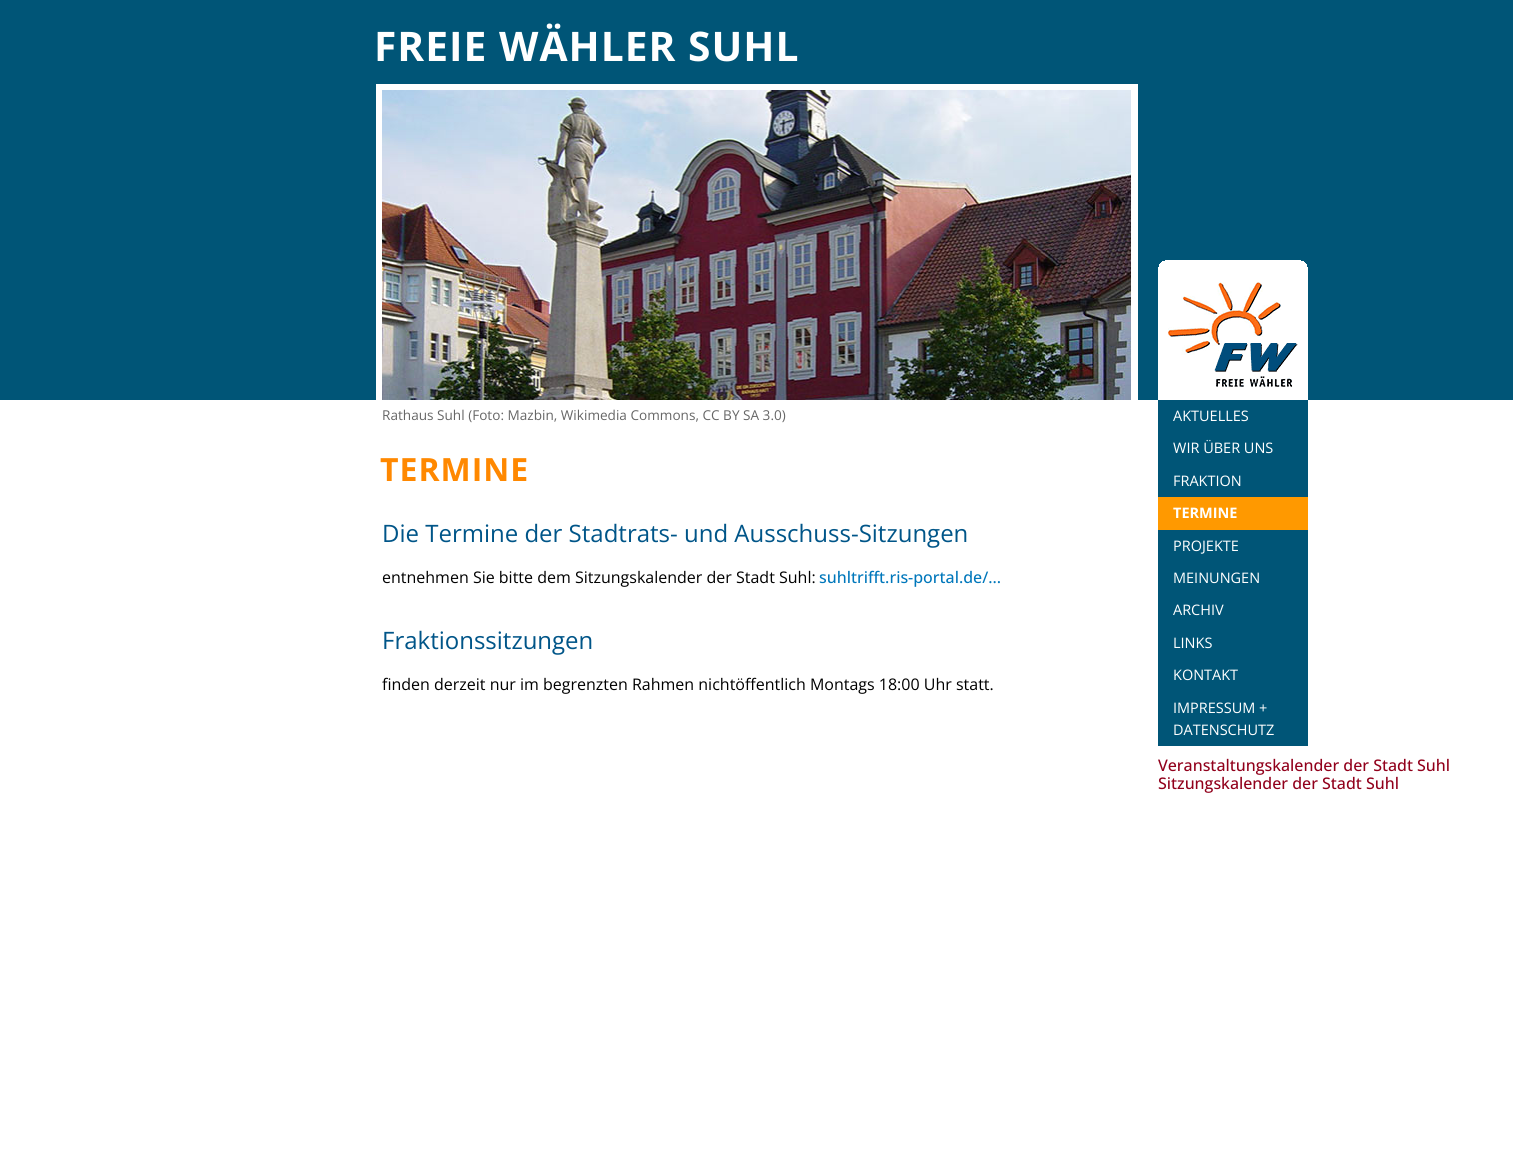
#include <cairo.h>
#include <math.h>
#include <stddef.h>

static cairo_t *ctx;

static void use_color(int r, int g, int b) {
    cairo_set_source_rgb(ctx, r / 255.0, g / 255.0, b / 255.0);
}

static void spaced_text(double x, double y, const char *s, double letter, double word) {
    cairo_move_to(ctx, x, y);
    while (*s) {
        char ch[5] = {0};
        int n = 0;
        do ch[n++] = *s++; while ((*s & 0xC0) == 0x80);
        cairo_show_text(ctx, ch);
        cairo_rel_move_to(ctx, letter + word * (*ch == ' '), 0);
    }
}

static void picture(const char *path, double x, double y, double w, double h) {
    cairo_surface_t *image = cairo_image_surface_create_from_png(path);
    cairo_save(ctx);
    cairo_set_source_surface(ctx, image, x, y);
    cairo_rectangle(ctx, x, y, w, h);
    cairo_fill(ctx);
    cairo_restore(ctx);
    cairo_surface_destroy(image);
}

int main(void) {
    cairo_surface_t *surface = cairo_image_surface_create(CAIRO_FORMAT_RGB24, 1513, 1161);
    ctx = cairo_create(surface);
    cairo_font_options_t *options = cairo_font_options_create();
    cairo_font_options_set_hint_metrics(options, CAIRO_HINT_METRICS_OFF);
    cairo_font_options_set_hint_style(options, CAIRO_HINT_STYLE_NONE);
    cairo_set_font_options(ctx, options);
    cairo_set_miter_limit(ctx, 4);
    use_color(255, 255, 255);
    cairo_paint(ctx);
    use_color(0, 85, 119);
    cairo_rectangle(ctx, 0, 0, 1513, 400);
    cairo_fill(ctx);
    cairo_select_font_face(ctx, "Open Sans", CAIRO_FONT_SLANT_NORMAL, CAIRO_FONT_WEIGHT_BOLD);
    cairo_set_font_size(ctx, 40.75);
    use_color(255, 255, 255);
    spaced_text(374, 61, "FREIE WÄHLER SUHL", 1, 0);
    cairo_rectangle(ctx, 376, 84, 762, 316);
    cairo_fill(ctx);
    picture("img1.png", 382, 90, 749, 310);
    cairo_select_font_face(ctx, "Open Sans", CAIRO_FONT_SLANT_NORMAL, CAIRO_FONT_WEIGHT_NORMAL);
    cairo_set_font_size(ctx, 13.6);
    use_color(102, 102, 102);
    cairo_move_to(ctx, 382, 420);
    cairo_show_text(ctx, "Rathaus Suhl (Foto: Mazbin, Wikimedia Commons, CC BY SA 3.0)");
    cairo_select_font_face(ctx, "Open Sans", CAIRO_FONT_SLANT_NORMAL, CAIRO_FONT_WEIGHT_BOLD);
    cairo_set_font_size(ctx, 32);
    use_color(255, 136, 0);
    spaced_text(380, 481, "TERMINE", 1, 0);
    cairo_select_font_face(ctx, "Open Sans", CAIRO_FONT_SLANT_NORMAL, CAIRO_FONT_WEIGHT_NORMAL);
    cairo_set_font_size(ctx, 24);
    use_color(0, 85, 136);
    cairo_move_to(ctx, 382, 542);
    cairo_show_text(ctx, "Die Termine der Stadtrats- und Ausschuss-Sitzungen");
    cairo_set_font_size(ctx, 16);
    use_color(0, 0, 0);
    cairo_move_to(ctx, 382, 583);
    cairo_show_text(ctx, "entnehmen Sie bitte dem Sitzungskalender der Stadt Suhl:");
    cairo_select_font_face(ctx, "Open Sans Medium", CAIRO_FONT_SLANT_NORMAL, CAIRO_FONT_WEIGHT_NORMAL);
    use_color(0, 119, 187);
    cairo_move_to(ctx, 819, 583);
    cairo_show_text(ctx, "suhltrifft.ris-portal.de/...");
    cairo_select_font_face(ctx, "Open Sans", CAIRO_FONT_SLANT_NORMAL, CAIRO_FONT_WEIGHT_NORMAL);
    cairo_set_font_size(ctx, 24);
    use_color(0, 85, 136);
    cairo_move_to(ctx, 382, 649);
    cairo_show_text(ctx, "Fraktionssitzungen");
    cairo_set_font_size(ctx, 16);
    use_color(0, 0, 0);
    cairo_move_to(ctx, 382, 690);
    cairo_show_text(ctx, "finden derzeit nur im begrenzten Rahmen nichtöffentlich Montags 18:00 Uhr statt.");
    picture("img2.png", 1158, 260, 150, 140);
    use_color(0, 85, 119);
    cairo_rectangle(ctx, 1158, 400, 150, 346);
    cairo_fill(ctx);
    cairo_set_font_size(ctx, 14.5);
    use_color(255, 255, 255);
    cairo_move_to(ctx, 1173, 421);
    cairo_show_text(ctx, "AKTUELLES");
    cairo_move_to(ctx, 1173, 453);
    cairo_show_text(ctx, "WIR ÜBER UNS");
    cairo_move_to(ctx, 1173, 486);
    cairo_show_text(ctx, "FRAKTION");
    use_color(255, 153, 0);
    cairo_rectangle(ctx, 1158, 497, 150, 33);
    cairo_fill(ctx);
    cairo_select_font_face(ctx, "Open Sans", CAIRO_FONT_SLANT_NORMAL, CAIRO_FONT_WEIGHT_BOLD);
    use_color(255, 255, 255);
    cairo_move_to(ctx, 1173, 518);
    cairo_show_text(ctx, "TERMINE");
    cairo_select_font_face(ctx, "Open Sans", CAIRO_FONT_SLANT_NORMAL, CAIRO_FONT_WEIGHT_NORMAL);
    cairo_move_to(ctx, 1173, 551);
    cairo_show_text(ctx, "PROJEKTE");
    cairo_move_to(ctx, 1173, 583);
    cairo_show_text(ctx, "MEINUNGEN");
    cairo_move_to(ctx, 1173, 615);
    cairo_show_text(ctx, "ARCHIV");
    cairo_move_to(ctx, 1173, 648);
    cairo_show_text(ctx, "LINKS");
    cairo_move_to(ctx, 1173, 680);
    cairo_show_text(ctx, "KONTAKT");
    cairo_move_to(ctx, 1173, 713);
    cairo_show_text(ctx, "IMPRESSUM +");
    cairo_move_to(ctx, 1173, 735);
    cairo_show_text(ctx, "DATENSCHUTZ");
    cairo_select_font_face(ctx, "Open Sans Medium", CAIRO_FONT_SLANT_NORMAL, CAIRO_FONT_WEIGHT_NORMAL);
    cairo_set_font_size(ctx, 16);
    use_color(145, 0, 27);
    cairo_move_to(ctx, 1158, 771);
    cairo_show_text(ctx, "Veranstaltungskalender der Stadt Suhl");
    cairo_move_to(ctx, 1158, 789);
    cairo_show_text(ctx, "Sitzungskalender der Stadt Suhl");
    cairo_surface_write_to_png(surface, "result.png");
    cairo_font_options_destroy(options);
    cairo_destroy(ctx);
    cairo_surface_destroy(surface);
    return 0;
}
